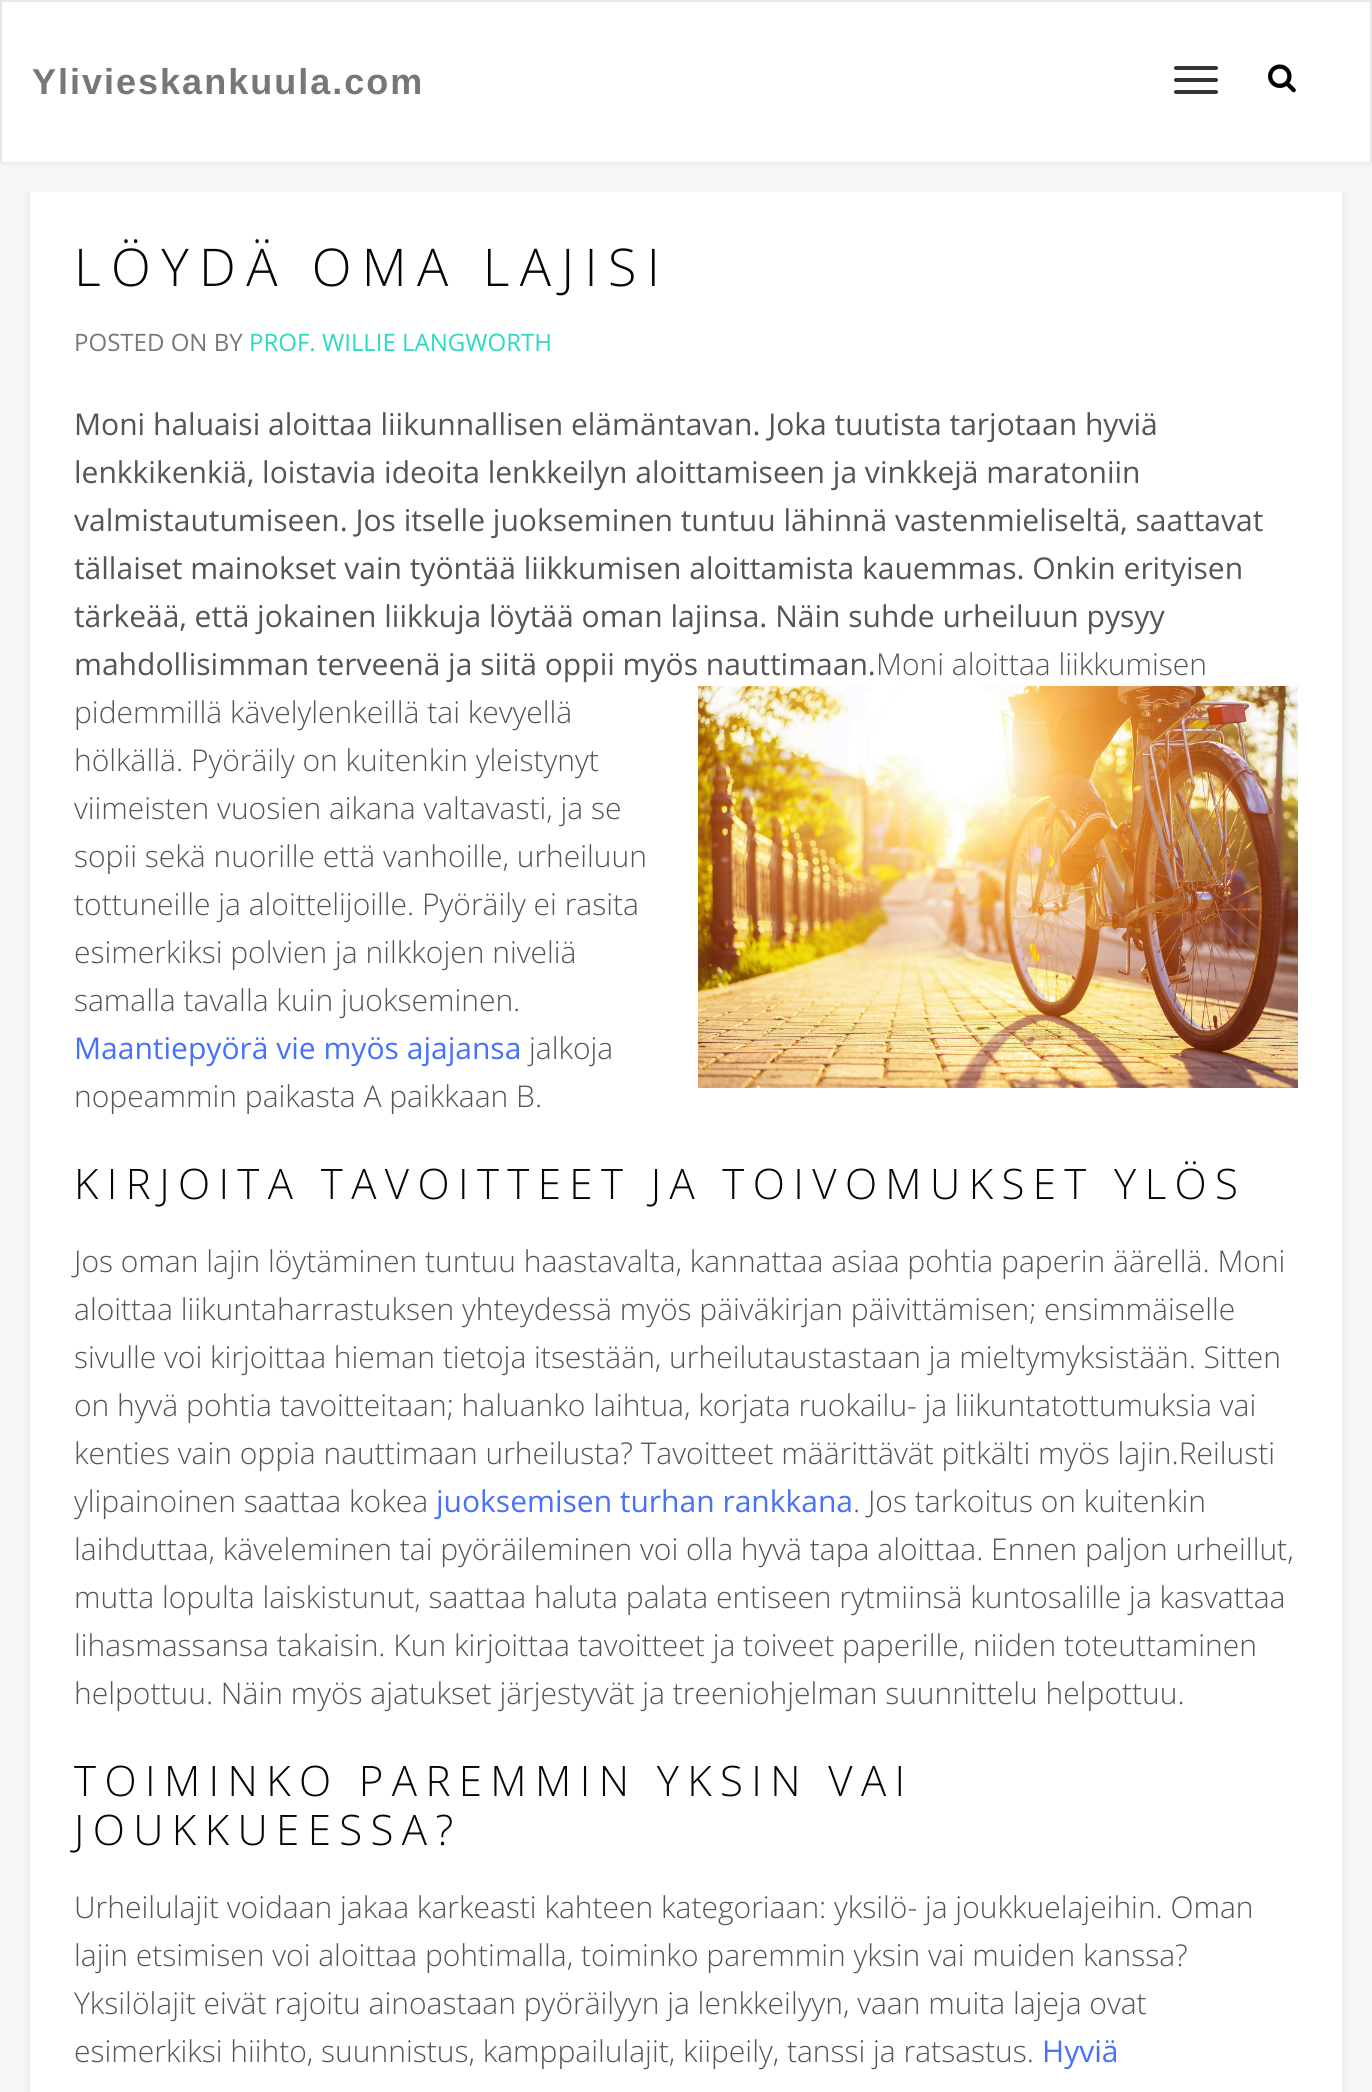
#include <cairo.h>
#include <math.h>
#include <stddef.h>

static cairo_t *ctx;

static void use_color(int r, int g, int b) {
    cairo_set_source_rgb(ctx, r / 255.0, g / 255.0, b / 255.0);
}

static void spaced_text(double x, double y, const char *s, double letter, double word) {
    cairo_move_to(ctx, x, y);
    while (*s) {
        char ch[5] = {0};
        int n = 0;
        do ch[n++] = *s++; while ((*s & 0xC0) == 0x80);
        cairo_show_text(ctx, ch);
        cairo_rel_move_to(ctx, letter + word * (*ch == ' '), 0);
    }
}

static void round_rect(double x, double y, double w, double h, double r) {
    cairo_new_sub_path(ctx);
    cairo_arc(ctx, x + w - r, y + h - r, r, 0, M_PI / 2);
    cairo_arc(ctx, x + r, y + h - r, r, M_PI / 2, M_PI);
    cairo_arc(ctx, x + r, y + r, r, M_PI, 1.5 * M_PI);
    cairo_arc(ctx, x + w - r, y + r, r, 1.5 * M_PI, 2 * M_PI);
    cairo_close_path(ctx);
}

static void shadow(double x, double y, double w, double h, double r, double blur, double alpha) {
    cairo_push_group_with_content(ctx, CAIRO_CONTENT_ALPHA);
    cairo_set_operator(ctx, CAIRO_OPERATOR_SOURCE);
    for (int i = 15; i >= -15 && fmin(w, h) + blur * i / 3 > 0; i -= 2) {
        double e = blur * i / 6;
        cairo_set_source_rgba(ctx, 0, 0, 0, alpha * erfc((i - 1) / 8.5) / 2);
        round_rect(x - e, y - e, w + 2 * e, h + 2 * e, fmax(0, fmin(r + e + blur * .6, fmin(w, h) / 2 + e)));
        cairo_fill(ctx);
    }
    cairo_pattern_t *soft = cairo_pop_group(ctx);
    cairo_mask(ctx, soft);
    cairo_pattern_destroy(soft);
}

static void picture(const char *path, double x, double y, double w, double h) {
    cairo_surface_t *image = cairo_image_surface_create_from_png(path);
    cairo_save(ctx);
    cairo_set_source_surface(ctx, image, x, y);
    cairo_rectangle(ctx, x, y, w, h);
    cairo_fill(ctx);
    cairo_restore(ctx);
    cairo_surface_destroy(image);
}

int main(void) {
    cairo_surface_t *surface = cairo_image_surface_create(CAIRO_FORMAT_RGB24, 1372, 2092);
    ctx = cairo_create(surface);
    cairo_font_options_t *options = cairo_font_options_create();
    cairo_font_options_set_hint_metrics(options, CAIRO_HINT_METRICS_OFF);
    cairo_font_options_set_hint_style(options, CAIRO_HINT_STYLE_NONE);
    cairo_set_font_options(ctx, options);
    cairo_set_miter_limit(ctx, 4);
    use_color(246, 246, 246);
    cairo_paint(ctx);
    use_color(225, 222, 222);
    shadow(0, 0, 1372, 162, 0, 3, 1);
    use_color(255, 255, 255);
    cairo_rectangle(ctx, 2, 2, 1368, 160);
    cairo_fill(ctx);
    use_color(231, 231, 231);
    cairo_rectangle(ctx, 0, 0, 1372, 2);
    cairo_fill(ctx);
    cairo_rectangle(ctx, 1370, 0, 2, 162);
    cairo_fill(ctx);
    cairo_rectangle(ctx, 0, 0, 2, 162);
    cairo_fill(ctx);
    cairo_select_font_face(ctx, "Liberation Sans", CAIRO_FONT_SLANT_NORMAL, CAIRO_FONT_WEIGHT_BOLD);
    cairo_set_font_size(ctx, 36);
    use_color(119, 119, 119);
    spaced_text(32, 94, "Ylivieskankuula.com", 2, 0);
    use_color(51, 51, 51);
    round_rect(1174, 66, 44, 4, 2);
    cairo_fill(ctx);
    round_rect(1174, 78, 44, 4, 2);
    cairo_fill(ctx);
    round_rect(1174, 90, 44, 4, 2);
    cairo_fill(ctx);
    picture("img1.png", 1268, 64, 28, 29);
    cairo_save(ctx);
    cairo_rectangle(ctx, 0, 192, 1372, 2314);
    cairo_clip(ctx);
    use_color(225, 222, 222);
    shadow(30, 192, 1312, 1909, 0, 3, 1);
    cairo_restore(ctx);
    use_color(255, 255, 255);
    cairo_rectangle(ctx, 30, 192, 1312, 1900);
    cairo_fill(ctx);
    cairo_select_font_face(ctx, "Open Sans Light", CAIRO_FONT_SLANT_NORMAL, CAIRO_FONT_WEIGHT_NORMAL);
    cairo_set_font_size(ctx, 52);
    use_color(6, 6, 6);
    spaced_text(74, 286, "LÖYDÄ OMA LAJISI", 10.4, 0);
    cairo_select_font_face(ctx, "Open Sans", CAIRO_FONT_SLANT_NORMAL, CAIRO_FONT_WEIGHT_NORMAL);
    cairo_set_font_size(ctx, 24);
    use_color(119, 119, 119);
    cairo_move_to(ctx, 74, 351);
    cairo_show_text(ctx, "POSTED ON BY");
    use_color(41, 217, 194);
    cairo_move_to(ctx, 249, 351);
    cairo_show_text(ctx, "PROF. WILLIE LANGWORTH");
    cairo_set_font_size(ctx, 30);
    use_color(85, 85, 85);
    cairo_move_to(ctx, 74, 435);
    cairo_show_text(ctx, "Moni haluaisi aloittaa liikunnallisen elämäntavan. Joka tuutista tarjotaan hyviä");
    cairo_move_to(ctx, 74, 483);
    cairo_show_text(ctx, "lenkkikenkiä, loistavia ideoita lenkkeilyn aloittamiseen ja vinkkejä maratoniin");
    cairo_move_to(ctx, 74, 531);
    cairo_show_text(ctx, "valmistautumiseen. Jos itselle juokseminen tuntuu lähinnä vastenmieliseltä, saattavat");
    cairo_move_to(ctx, 74, 579);
    cairo_show_text(ctx, "tällaiset mainokset vain työntää liikkumisen aloittamista kauemmas. Onkin erityisen");
    cairo_move_to(ctx, 74, 627);
    cairo_show_text(ctx, "tärkeää, että jokainen liikkuja löytää oman lajinsa. Näin suhde urheiluun pysyy");
    cairo_move_to(ctx, 74, 675);
    cairo_show_text(ctx, "mahdollisimman terveenä ja siitä oppii myös nauttimaan.");
    cairo_select_font_face(ctx, "Open Sans Light", CAIRO_FONT_SLANT_NORMAL, CAIRO_FONT_WEIGHT_NORMAL);
    cairo_move_to(ctx, 876, 675);
    cairo_show_text(ctx, "Moni aloittaa liikkumisen");
    cairo_move_to(ctx, 74, 723);
    cairo_show_text(ctx, "pidemmillä kävelylenkeillä tai kevyellä");
    picture("img2.png", 698, 686, 600, 402);
    cairo_move_to(ctx, 74, 771);
    cairo_show_text(ctx, "hölkällä. Pyöräily on kuitenkin yleistynyt");
    cairo_move_to(ctx, 74, 819);
    cairo_show_text(ctx, "viimeisten vuosien aikana valtavasti, ja se");
    cairo_move_to(ctx, 74, 867);
    cairo_show_text(ctx, "sopii sekä nuorille että vanhoille, urheiluun");
    cairo_move_to(ctx, 74, 915);
    cairo_show_text(ctx, "tottuneille ja aloittelijoille. Pyöräily ei rasita");
    cairo_move_to(ctx, 74, 963);
    cairo_show_text(ctx, "esimerkiksi polvien ja nilkkojen niveliä");
    cairo_move_to(ctx, 74, 1011);
    cairo_show_text(ctx, "samalla tavalla kuin juokseminen.");
    cairo_select_font_face(ctx, "Open Sans", CAIRO_FONT_SLANT_NORMAL, CAIRO_FONT_WEIGHT_NORMAL);
    use_color(70, 113, 251);
    cairo_move_to(ctx, 74, 1059);
    cairo_show_text(ctx, "Maantiepyörä vie myös ajajansa");
    cairo_select_font_face(ctx, "Open Sans Light", CAIRO_FONT_SLANT_NORMAL, CAIRO_FONT_WEIGHT_NORMAL);
    use_color(85, 85, 85);
    cairo_move_to(ctx, 529, 1059);
    cairo_show_text(ctx, "jalkoja");
    cairo_move_to(ctx, 74, 1107);
    cairo_show_text(ctx, "nopeammin paikasta A paikkaan B.");
    cairo_set_font_size(ctx, 42);
    use_color(6, 6, 6);
    spaced_text(74, 1199, "KIRJOITA TAVOITTEET JA TOIVOMUKSET YLÖS", 8.4, 0);
    cairo_set_font_size(ctx, 30);
    use_color(85, 85, 85);
    cairo_move_to(ctx, 74, 1272);
    cairo_show_text(ctx, "Jos oman lajin löytäminen tuntuu haastavalta, kannattaa asiaa pohtia paperin äärellä. Moni");
    cairo_move_to(ctx, 74, 1320);
    cairo_show_text(ctx, "aloittaa liikuntaharrastuksen yhteydessä myös päiväkirjan päivittämisen; ensimmäiselle");
    cairo_move_to(ctx, 74, 1368);
    cairo_show_text(ctx, "sivulle voi kirjoittaa hieman tietoja itsestään, urheilutaustastaan ja mieltymyksistään. Sitten");
    cairo_move_to(ctx, 74, 1416);
    cairo_show_text(ctx, "on hyvä pohtia tavoitteitaan; haluanko laihtua, korjata ruokailu- ja liikuntatottumuksia vai");
    cairo_move_to(ctx, 74, 1464);
    cairo_show_text(ctx, "kenties vain oppia nauttimaan urheilusta? Tavoitteet määrittävät pitkälti myös lajin.Reilusti");
    cairo_move_to(ctx, 74, 1512);
    cairo_show_text(ctx, "ylipainoinen saattaa kokea");
    cairo_select_font_face(ctx, "Open Sans", CAIRO_FONT_SLANT_NORMAL, CAIRO_FONT_WEIGHT_NORMAL);
    use_color(70, 113, 251);
    cairo_move_to(ctx, 436, 1512);
    cairo_show_text(ctx, "juoksemisen turhan rankkana");
    cairo_select_font_face(ctx, "Open Sans Light", CAIRO_FONT_SLANT_NORMAL, CAIRO_FONT_WEIGHT_NORMAL);
    use_color(85, 85, 85);
    cairo_move_to(ctx, 853, 1512);
    cairo_show_text(ctx, ". Jos tarkoitus on kuitenkin");
    cairo_move_to(ctx, 74, 1560);
    cairo_show_text(ctx, "laihduttaa, käveleminen tai pyöräileminen voi olla hyvä tapa aloittaa. Ennen paljon urheillut,");
    cairo_move_to(ctx, 74, 1608);
    cairo_show_text(ctx, "mutta lopulta laiskistunut, saattaa haluta palata entiseen rytmiinsä kuntosalille ja kasvattaa");
    cairo_move_to(ctx, 74, 1656);
    cairo_show_text(ctx, "lihasmassansa takaisin. Kun kirjoittaa tavoitteet ja toiveet paperille, niiden toteuttaminen");
    cairo_move_to(ctx, 74, 1704);
    cairo_show_text(ctx, "helpottuu. Näin myös ajatukset järjestyvät ja treeniohjelman suunnittelu helpottuu.");
    cairo_set_font_size(ctx, 42);
    use_color(6, 6, 6);
    spaced_text(74, 1796, "TOIMINKO PAREMMIN YKSIN VAI", 8.4, 0);
    spaced_text(74, 1845, "JOUKKUEESSA?", 8.4, 0);
    cairo_set_font_size(ctx, 30);
    use_color(85, 85, 85);
    cairo_move_to(ctx, 74, 1918);
    cairo_show_text(ctx, "Urheilulajit voidaan jakaa karkeasti kahteen kategoriaan: yksilö- ja joukkuelajeihin. Oman");
    cairo_move_to(ctx, 74, 1966);
    cairo_show_text(ctx, "lajin etsimisen voi aloittaa pohtimalla, toiminko paremmin yksin vai muiden kanssa?");
    cairo_move_to(ctx, 74, 2014);
    cairo_show_text(ctx, "Yksilölajit eivät rajoitu ainoastaan pyöräilyyn ja lenkkeilyyn, vaan muita lajeja ovat");
    cairo_move_to(ctx, 74, 2062);
    cairo_show_text(ctx, "esimerkiksi hiihto, suunnistus, kamppailulajit, kiipeily, tanssi ja ratsastus.");
    cairo_select_font_face(ctx, "Open Sans", CAIRO_FONT_SLANT_NORMAL, CAIRO_FONT_WEIGHT_NORMAL);
    use_color(70, 113, 251);
    cairo_move_to(ctx, 1042, 2062);
    cairo_show_text(ctx, "Hyviä");
    cairo_surface_write_to_png(surface, "result.png");
    cairo_font_options_destroy(options);
    cairo_destroy(ctx);
    cairo_surface_destroy(surface);
    return 0;
}
